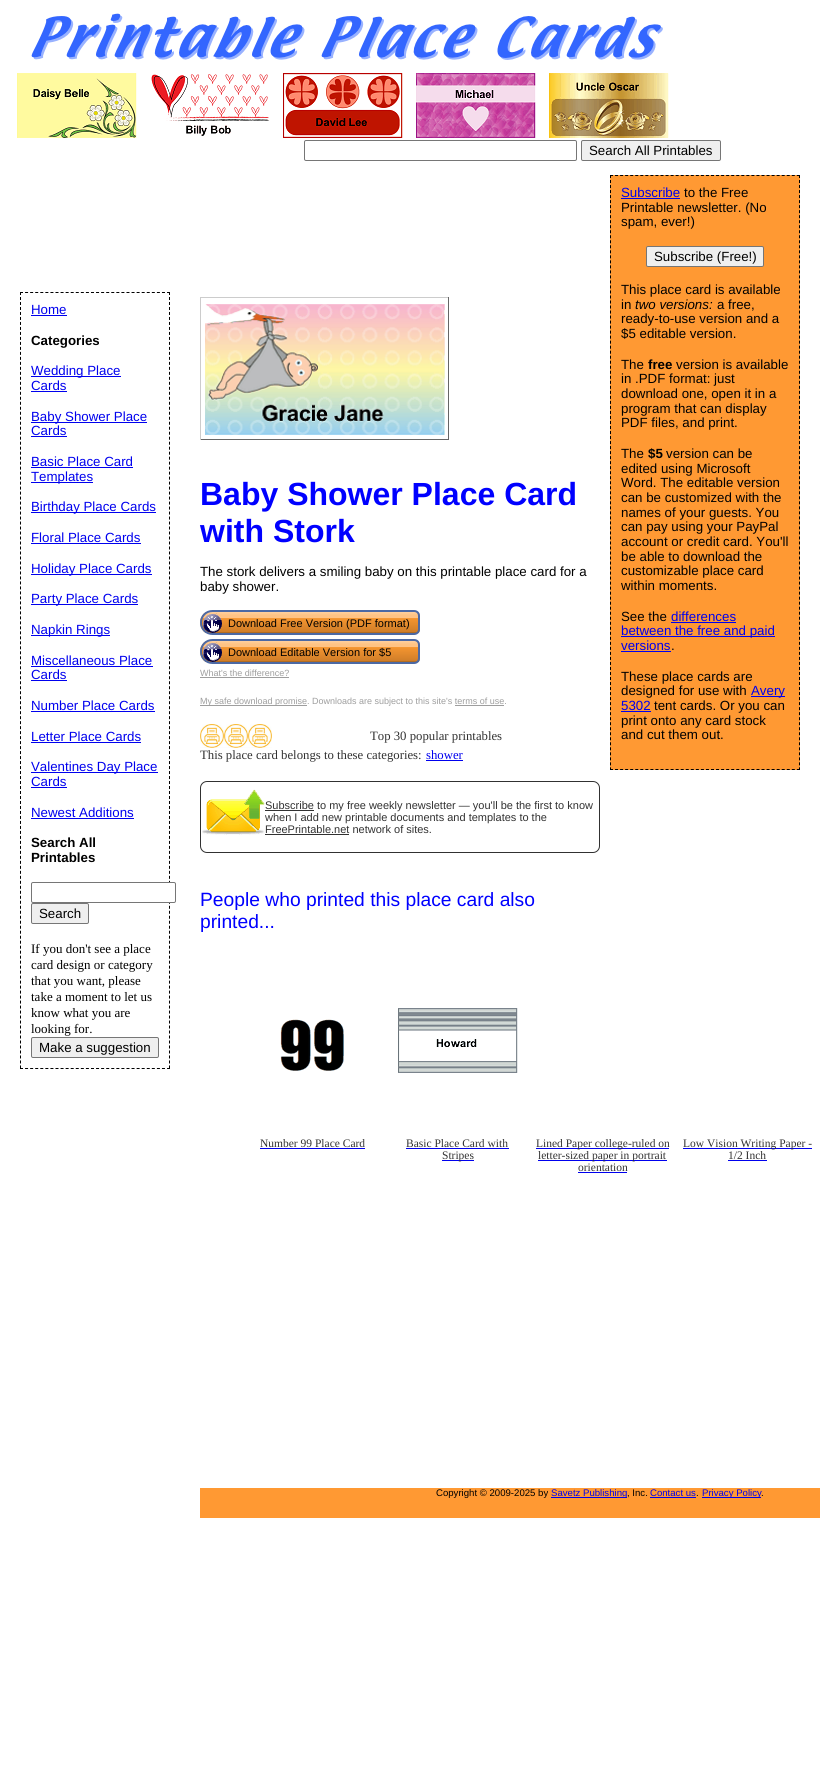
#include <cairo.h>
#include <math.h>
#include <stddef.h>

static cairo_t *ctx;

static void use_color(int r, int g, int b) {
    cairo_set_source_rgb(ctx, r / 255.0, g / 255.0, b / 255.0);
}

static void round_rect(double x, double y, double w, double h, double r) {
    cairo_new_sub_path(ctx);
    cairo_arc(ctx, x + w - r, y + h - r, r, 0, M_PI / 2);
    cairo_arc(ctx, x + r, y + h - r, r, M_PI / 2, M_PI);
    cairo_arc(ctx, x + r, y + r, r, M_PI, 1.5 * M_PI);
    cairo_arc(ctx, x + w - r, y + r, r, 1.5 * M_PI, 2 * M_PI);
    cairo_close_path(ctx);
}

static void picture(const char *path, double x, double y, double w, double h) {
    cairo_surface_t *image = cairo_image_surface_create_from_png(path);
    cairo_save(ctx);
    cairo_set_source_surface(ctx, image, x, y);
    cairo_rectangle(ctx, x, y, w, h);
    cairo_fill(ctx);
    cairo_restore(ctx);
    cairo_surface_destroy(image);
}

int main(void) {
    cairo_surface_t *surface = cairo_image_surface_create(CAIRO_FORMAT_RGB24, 820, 1787);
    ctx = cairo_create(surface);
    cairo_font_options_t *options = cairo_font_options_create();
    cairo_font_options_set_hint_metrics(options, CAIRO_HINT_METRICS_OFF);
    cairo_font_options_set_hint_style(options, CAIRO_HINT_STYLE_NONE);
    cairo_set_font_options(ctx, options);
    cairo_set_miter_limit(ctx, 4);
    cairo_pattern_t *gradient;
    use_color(255, 255, 255);
    cairo_paint(ctx);
    picture("img1.png", 31, 13, 632, 47);
    picture("img2.png", 17, 73, 120, 65);
    picture("img3.png", 151, 74, 119, 62);
    picture("img4.png", 283, 73, 120, 65);
    picture("img5.png", 416, 73, 120, 65);
    picture("img6.png", 549, 73, 120, 65);
    round_rect(304.5, 140.5, 272, 20, 1.5);
    use_color(118, 118, 118);
    cairo_set_line_width(ctx, 1);
    cairo_stroke(ctx);
    use_color(239, 239, 239);
    round_rect(581.5, 140.5, 139, 20, 1.5);
    cairo_fill_preserve(ctx);
    use_color(118, 118, 118);
    cairo_stroke(ctx);
    cairo_select_font_face(ctx, "Liberation Sans", CAIRO_FONT_SLANT_NORMAL, CAIRO_FONT_WEIGHT_NORMAL);
    cairo_set_font_size(ctx, 13.3);
    use_color(0, 0, 0);
    cairo_move_to(ctx, 589, 155);
    cairo_show_text(ctx, "Search All Printables");
    cairo_new_path(ctx);
    cairo_move_to(ctx, 20, 292.5);
    cairo_line_to(ctx, 170, 292.5);
    cairo_set_dash(ctx, (double[]){3, 2.07}, 2, 0);
    cairo_stroke(ctx);
    cairo_new_path(ctx);
    cairo_move_to(ctx, 169.5, 292);
    cairo_line_to(ctx, 169.5, 1069);
    cairo_set_dash(ctx, (double[]){3, 1.99}, 2, 0);
    cairo_stroke(ctx);
    cairo_new_path(ctx);
    cairo_move_to(ctx, 20, 1068.5);
    cairo_line_to(ctx, 170, 1068.5);
    cairo_set_dash(ctx, (double[]){3, 2.07}, 2, 0);
    cairo_stroke(ctx);
    cairo_new_path(ctx);
    cairo_move_to(ctx, 20.5, 292);
    cairo_line_to(ctx, 20.5, 1069);
    cairo_set_dash(ctx, (double[]){3, 1.99}, 2, 0);
    cairo_stroke(ctx);
    use_color(0, 0, 238);
    cairo_move_to(ctx, 31, 314);
    cairo_show_text(ctx, "Home");
    cairo_rectangle(ctx, 31, 315, 36, 1);
    cairo_fill(ctx);
    cairo_select_font_face(ctx, "Liberation Sans", CAIRO_FONT_SLANT_NORMAL, CAIRO_FONT_WEIGHT_BOLD);
    use_color(0, 0, 0);
    cairo_move_to(ctx, 31, 345);
    cairo_show_text(ctx, "Categories");
    use_color(0, 0, 238);
    cairo_rectangle(ctx, 31, 376, 90, 1);
    cairo_fill(ctx);
    cairo_select_font_face(ctx, "Liberation Sans", CAIRO_FONT_SLANT_NORMAL, CAIRO_FONT_WEIGHT_NORMAL);
    cairo_move_to(ctx, 31, 375);
    cairo_show_text(ctx, "Wedding Place");
    cairo_move_to(ctx, 31, 390);
    cairo_show_text(ctx, "Cards");
    cairo_rectangle(ctx, 31, 391, 36, 1);
    cairo_fill(ctx);
    cairo_rectangle(ctx, 31, 422, 116, 1);
    cairo_fill(ctx);
    cairo_move_to(ctx, 31, 421);
    cairo_show_text(ctx, "Baby Shower Place");
    cairo_move_to(ctx, 31, 435);
    cairo_show_text(ctx, "Cards");
    cairo_rectangle(ctx, 31, 436, 36, 1);
    cairo_fill(ctx);
    cairo_move_to(ctx, 31, 466);
    cairo_show_text(ctx, "Basic Place Card");
    cairo_rectangle(ctx, 31, 467, 102, 1);
    cairo_fill(ctx);
    cairo_rectangle(ctx, 31, 482, 62, 1);
    cairo_fill(ctx);
    cairo_move_to(ctx, 31, 481);
    cairo_show_text(ctx, "Templates");
    cairo_rectangle(ctx, 31, 512, 125, 1);
    cairo_fill(ctx);
    cairo_move_to(ctx, 31, 511);
    cairo_show_text(ctx, "Birthday Place Cards");
    cairo_move_to(ctx, 31, 542);
    cairo_show_text(ctx, "Floral Place Cards");
    cairo_rectangle(ctx, 31, 543, 110, 1);
    cairo_fill(ctx);
    cairo_rectangle(ctx, 31, 574, 121, 1);
    cairo_fill(ctx);
    cairo_move_to(ctx, 31, 573);
    cairo_show_text(ctx, "Holiday Place Cards");
    cairo_rectangle(ctx, 31, 604, 107, 1);
    cairo_fill(ctx);
    cairo_move_to(ctx, 31, 603);
    cairo_show_text(ctx, "Party Place Cards");
    cairo_rectangle(ctx, 31, 635, 79, 1);
    cairo_fill(ctx);
    cairo_move_to(ctx, 31, 634);
    cairo_show_text(ctx, "Napkin Rings");
    cairo_move_to(ctx, 31, 665);
    cairo_show_text(ctx, "Miscellaneous Place");
    cairo_rectangle(ctx, 31, 666, 122, 1);
    cairo_fill(ctx);
    cairo_move_to(ctx, 31, 679);
    cairo_show_text(ctx, "Cards");
    cairo_rectangle(ctx, 31, 680, 36, 1);
    cairo_fill(ctx);
    cairo_move_to(ctx, 31, 710);
    cairo_show_text(ctx, "Number Place Cards");
    cairo_rectangle(ctx, 31, 711, 124, 1);
    cairo_fill(ctx);
    cairo_move_to(ctx, 31, 741);
    cairo_show_text(ctx, "Letter Place Cards");
    cairo_rectangle(ctx, 31, 742, 110, 1);
    cairo_fill(ctx);
    cairo_rectangle(ctx, 31, 772, 127, 1);
    cairo_fill(ctx);
    cairo_move_to(ctx, 31, 771);
    cairo_show_text(ctx, "Valentines Day Place");
    cairo_move_to(ctx, 31, 786);
    cairo_show_text(ctx, "Cards");
    cairo_rectangle(ctx, 31, 787, 36, 1);
    cairo_fill(ctx);
    cairo_move_to(ctx, 31, 817);
    cairo_show_text(ctx, "Newest Additions");
    cairo_rectangle(ctx, 31, 818, 103, 1);
    cairo_fill(ctx);
    cairo_select_font_face(ctx, "Liberation Sans", CAIRO_FONT_SLANT_NORMAL, CAIRO_FONT_WEIGHT_BOLD);
    use_color(0, 0, 0);
    cairo_move_to(ctx, 31, 847);
    cairo_show_text(ctx, "Search All");
    cairo_move_to(ctx, 31, 862);
    cairo_show_text(ctx, "Printables");
    use_color(255, 255, 255);
    round_rect(31.5, 882.5, 144, 20, 1.5);
    cairo_fill_preserve(ctx);
    use_color(118, 118, 118);
    cairo_set_dash(ctx, NULL, 0, 0);
    cairo_stroke(ctx);
    use_color(239, 239, 239);
    round_rect(31.5, 903.5, 57, 20, 1.5);
    cairo_fill_preserve(ctx);
    use_color(118, 118, 118);
    cairo_stroke(ctx);
    cairo_select_font_face(ctx, "Liberation Sans", CAIRO_FONT_SLANT_NORMAL, CAIRO_FONT_WEIGHT_NORMAL);
    use_color(0, 0, 0);
    cairo_move_to(ctx, 39, 918);
    cairo_show_text(ctx, "Search");
    cairo_select_font_face(ctx, "Liberation Serif", CAIRO_FONT_SLANT_NORMAL, CAIRO_FONT_WEIGHT_NORMAL);
    cairo_set_font_size(ctx, 13);
    cairo_move_to(ctx, 31, 953);
    cairo_show_text(ctx, "If you don't see a place");
    cairo_move_to(ctx, 31, 969);
    cairo_show_text(ctx, "card design or category");
    cairo_move_to(ctx, 31, 985);
    cairo_show_text(ctx, "that you want, please");
    cairo_move_to(ctx, 31, 1001);
    cairo_show_text(ctx, "take a moment to let us");
    cairo_move_to(ctx, 31, 1017);
    cairo_show_text(ctx, "know what you are");
    cairo_move_to(ctx, 31, 1033);
    cairo_show_text(ctx, "looking for.");
    use_color(239, 239, 239);
    round_rect(31.5, 1037.5, 127, 20, 1.5);
    cairo_fill_preserve(ctx);
    use_color(118, 118, 118);
    cairo_stroke(ctx);
    cairo_select_font_face(ctx, "Liberation Sans", CAIRO_FONT_SLANT_NORMAL, CAIRO_FONT_WEIGHT_NORMAL);
    cairo_set_font_size(ctx, 13.3);
    use_color(0, 0, 0);
    cairo_move_to(ctx, 39, 1052);
    cairo_show_text(ctx, "Make a suggestion");
    use_color(255, 153, 51);
    cairo_rectangle(ctx, 610, 175, 190, 595);
    cairo_fill(ctx);
    cairo_new_path(ctx);
    cairo_move_to(ctx, 610, 175.5);
    cairo_line_to(ctx, 800, 175.5);
    use_color(0, 0, 0);
    cairo_set_dash(ctx, (double[]){3, 2.05}, 2, 0);
    cairo_stroke(ctx);
    cairo_new_path(ctx);
    cairo_move_to(ctx, 799.5, 175);
    cairo_line_to(ctx, 799.5, 770);
    cairo_set_dash(ctx, (double[]){3, 2.02}, 2, 0);
    cairo_stroke(ctx);
    cairo_new_path(ctx);
    cairo_move_to(ctx, 610, 769.5);
    cairo_line_to(ctx, 800, 769.5);
    cairo_set_dash(ctx, (double[]){3, 2.05}, 2, 0);
    cairo_stroke(ctx);
    cairo_new_path(ctx);
    cairo_move_to(ctx, 610.5, 175);
    cairo_line_to(ctx, 610.5, 770);
    cairo_set_dash(ctx, (double[]){3, 2.02}, 2, 0);
    cairo_stroke(ctx);
    use_color(0, 0, 238);
    cairo_move_to(ctx, 621, 197);
    cairo_show_text(ctx, "Subscribe");
    cairo_rectangle(ctx, 621, 198, 59, 1);
    cairo_fill(ctx);
    use_color(0, 0, 0);
    cairo_move_to(ctx, 684, 197);
    cairo_show_text(ctx, "to the Free");
    cairo_move_to(ctx, 621, 212);
    cairo_show_text(ctx, "Printable newsletter. (No");
    cairo_move_to(ctx, 621, 226);
    cairo_show_text(ctx, "spam, ever!)");
    use_color(239, 239, 239);
    round_rect(646.5, 246.5, 117, 20, 1.5);
    cairo_fill_preserve(ctx);
    use_color(118, 118, 118);
    cairo_set_dash(ctx, NULL, 0, 0);
    cairo_stroke(ctx);
    use_color(0, 0, 0);
    cairo_move_to(ctx, 654, 261);
    cairo_show_text(ctx, "Subscribe (Free!)");
    cairo_move_to(ctx, 621, 294);
    cairo_show_text(ctx, "This place card is available");
    cairo_move_to(ctx, 621, 309);
    cairo_show_text(ctx, "in");
    cairo_select_font_face(ctx, "Liberation Sans", CAIRO_FONT_SLANT_ITALIC, CAIRO_FONT_WEIGHT_NORMAL);
    cairo_move_to(ctx, 635, 309);
    cairo_show_text(ctx, "two versions:");
    cairo_select_font_face(ctx, "Liberation Sans", CAIRO_FONT_SLANT_NORMAL, CAIRO_FONT_WEIGHT_NORMAL);
    cairo_move_to(ctx, 717, 309);
    cairo_show_text(ctx, "a free,");
    cairo_move_to(ctx, 621, 323);
    cairo_show_text(ctx, "ready-to-use version and a");
    cairo_move_to(ctx, 621, 338);
    cairo_show_text(ctx, "$5 editable version.");
    cairo_move_to(ctx, 621, 369);
    cairo_show_text(ctx, "The");
    cairo_select_font_face(ctx, "Liberation Sans", CAIRO_FONT_SLANT_NORMAL, CAIRO_FONT_WEIGHT_BOLD);
    cairo_move_to(ctx, 648, 369);
    cairo_show_text(ctx, "free");
    cairo_select_font_face(ctx, "Liberation Sans", CAIRO_FONT_SLANT_NORMAL, CAIRO_FONT_WEIGHT_NORMAL);
    cairo_move_to(ctx, 676, 369);
    cairo_show_text(ctx, "version is available");
    cairo_move_to(ctx, 621, 383);
    cairo_show_text(ctx, "in .PDF format: just");
    cairo_move_to(ctx, 621, 398);
    cairo_show_text(ctx, "download one, open it in a");
    cairo_move_to(ctx, 621, 413);
    cairo_show_text(ctx, "program that can display");
    cairo_move_to(ctx, 621, 427);
    cairo_show_text(ctx, "PDF files, and print.");
    cairo_move_to(ctx, 621, 458);
    cairo_show_text(ctx, "The");
    cairo_select_font_face(ctx, "Liberation Sans", CAIRO_FONT_SLANT_NORMAL, CAIRO_FONT_WEIGHT_BOLD);
    cairo_move_to(ctx, 648, 458);
    cairo_show_text(ctx, "$5");
    cairo_select_font_face(ctx, "Liberation Sans", CAIRO_FONT_SLANT_NORMAL, CAIRO_FONT_WEIGHT_NORMAL);
    cairo_move_to(ctx, 666, 458);
    cairo_show_text(ctx, "version can be");
    cairo_move_to(ctx, 621, 473);
    cairo_show_text(ctx, "edited using Microsoft");
    cairo_move_to(ctx, 621, 487);
    cairo_show_text(ctx, "Word. The editable version");
    cairo_move_to(ctx, 621, 502);
    cairo_show_text(ctx, "can be customized with the");
    cairo_move_to(ctx, 621, 517);
    cairo_show_text(ctx, "names of your guests. You");
    cairo_move_to(ctx, 621, 531);
    cairo_show_text(ctx, "can pay using your PayPal");
    cairo_move_to(ctx, 621, 546);
    cairo_show_text(ctx, "account or credit card. You'll");
    cairo_move_to(ctx, 621, 561);
    cairo_show_text(ctx, "be able to download the");
    cairo_move_to(ctx, 621, 575);
    cairo_show_text(ctx, "customizable place card");
    cairo_move_to(ctx, 621, 590);
    cairo_show_text(ctx, "within moments.");
    cairo_move_to(ctx, 621, 621);
    cairo_show_text(ctx, "See the");
    use_color(0, 0, 238);
    cairo_move_to(ctx, 671, 621);
    cairo_show_text(ctx, "differences");
    cairo_rectangle(ctx, 671, 622, 65, 1);
    cairo_fill(ctx);
    cairo_rectangle(ctx, 621, 636, 154, 1);
    cairo_fill(ctx);
    cairo_move_to(ctx, 621, 635);
    cairo_show_text(ctx, "between the free and paid");
    cairo_move_to(ctx, 621, 650);
    cairo_show_text(ctx, "versions");
    cairo_rectangle(ctx, 621, 651, 50, 1);
    cairo_fill(ctx);
    use_color(0, 0, 0);
    cairo_move_to(ctx, 671, 650);
    cairo_show_text(ctx, ".");
    cairo_move_to(ctx, 621, 681);
    cairo_show_text(ctx, "These place cards are");
    cairo_move_to(ctx, 621, 695);
    cairo_show_text(ctx, "designed for use with");
    use_color(0, 0, 238);
    cairo_rectangle(ctx, 751, 696, 34, 1);
    cairo_fill(ctx);
    cairo_move_to(ctx, 751, 695);
    cairo_show_text(ctx, "Avery");
    cairo_move_to(ctx, 621, 710);
    cairo_show_text(ctx, "5302");
    cairo_rectangle(ctx, 621, 711, 30, 1);
    cairo_fill(ctx);
    use_color(0, 0, 0);
    cairo_move_to(ctx, 654, 710);
    cairo_show_text(ctx, "tent cards. Or you can");
    cairo_move_to(ctx, 621, 725);
    cairo_show_text(ctx, "print onto any card stock");
    cairo_move_to(ctx, 621, 739);
    cairo_show_text(ctx, "and cut them out.");
    use_color(204, 204, 204);
    cairo_rectangle(ctx, 200, 297, 249, 1);
    cairo_fill(ctx);
    use_color(102, 102, 102);
    cairo_rectangle(ctx, 448, 297, 1, 143);
    cairo_fill(ctx);
    cairo_rectangle(ctx, 200, 439, 249, 1);
    cairo_fill(ctx);
    use_color(204, 204, 204);
    cairo_rectangle(ctx, 200, 297, 1, 143);
    cairo_fill(ctx);
    picture("img7.png", 205, 304, 240, 131);
    cairo_select_font_face(ctx, "Liberation Sans", CAIRO_FONT_SLANT_NORMAL, CAIRO_FONT_WEIGHT_BOLD);
    cairo_set_font_size(ctx, 32);
    use_color(0, 0, 255);
    cairo_move_to(ctx, 200, 505);
    cairo_show_text(ctx, "Baby Shower Place Card");
    cairo_move_to(ctx, 200, 542);
    cairo_show_text(ctx, "with Stork");
    cairo_select_font_face(ctx, "Liberation Sans", CAIRO_FONT_SLANT_NORMAL, CAIRO_FONT_WEIGHT_NORMAL);
    cairo_set_font_size(ctx, 13.3);
    use_color(0, 0, 0);
    cairo_move_to(ctx, 200, 576);
    cairo_show_text(ctx, "The stork delivers a smiling baby on this printable place card for a");
    cairo_move_to(ctx, 200, 591);
    cairo_show_text(ctx, "baby shower.");
    cairo_save(ctx);
    cairo_new_path(ctx);
    cairo_move_to(ctx, 212.5, 610);
    cairo_line_to(ctx, 414, 610);
    cairo_curve_to(ctx, 417.5, 610, 420, 612.5, 420, 616);
    cairo_line_to(ctx, 420, 629);
    cairo_curve_to(ctx, 420, 632.5, 417.5, 635, 414, 635);
    cairo_line_to(ctx, 212.5, 635);
    cairo_curve_to(ctx, 205.5, 635, 200, 629.5, 200, 622.5);
    cairo_curve_to(ctx, 200, 615.5, 205.5, 610, 212.5, 610);
    cairo_close_path(ctx);
    cairo_clip(ctx);
    gradient = cairo_pattern_create_linear(310, 612, 310, 633);
    cairo_pattern_add_color_stop_rgba(gradient, 0, 1, 0.816, 0.62, 1);
    cairo_pattern_add_color_stop_rgba(gradient, 0.15, 1, 0.765, 0.518, 1);
    cairo_pattern_add_color_stop_rgba(gradient, 0.3, 1, 0.765, 0.518, 1);
    cairo_pattern_add_color_stop_rgba(gradient, 0.31, 0.957, 0.584, 0.188, 1);
    cairo_pattern_add_color_stop_rgba(gradient, 0.94, 0.816, 0.494, 0.161, 1);
    cairo_pattern_add_color_stop_rgba(gradient, 0.95, 0.749, 0.455, 0.145, 1);
    cairo_pattern_add_color_stop_rgba(gradient, 1, 0.643, 0.392, 0.125, 1);
    cairo_set_source(ctx, gradient);
    cairo_pattern_destroy(gradient);
    cairo_rectangle(ctx, 200, 612, 220, 21);
    cairo_fill(ctx);
    cairo_restore(ctx);
    cairo_new_path(ctx);
    cairo_move_to(ctx, 212.5, 611);
    cairo_line_to(ctx, 414, 611);
    cairo_curve_to(ctx, 417, 611, 419, 613, 419, 616);
    cairo_line_to(ctx, 419, 629);
    cairo_curve_to(ctx, 419, 632, 417, 634, 414, 634);
    cairo_line_to(ctx, 212.5, 634);
    cairo_curve_to(ctx, 206, 634, 201, 629, 201, 622.5);
    cairo_curve_to(ctx, 201, 616, 206, 611, 212.5, 611);
    cairo_close_path(ctx);
    use_color(76, 105, 164);
    cairo_set_line_width(ctx, 2);
    cairo_stroke(ctx);
    picture("img8.png", 203, 613, 19, 20);
    cairo_set_font_size(ctx, 11);
    use_color(0, 0, 0);
    cairo_move_to(ctx, 228, 627);
    cairo_show_text(ctx, "Download Free Version (PDF format)");
    cairo_save(ctx);
    cairo_new_path(ctx);
    cairo_move_to(ctx, 212.5, 639);
    cairo_line_to(ctx, 414, 639);
    cairo_curve_to(ctx, 417.5, 639, 420, 641.5, 420, 645);
    cairo_line_to(ctx, 420, 658);
    cairo_curve_to(ctx, 420, 661.5, 417.5, 664, 414, 664);
    cairo_line_to(ctx, 212.5, 664);
    cairo_curve_to(ctx, 205.5, 664, 200, 658.5, 200, 651.5);
    cairo_curve_to(ctx, 200, 644.5, 205.5, 639, 212.5, 639);
    cairo_close_path(ctx);
    cairo_clip(ctx);
    gradient = cairo_pattern_create_linear(310, 641, 310, 662);
    cairo_pattern_add_color_stop_rgba(gradient, 0, 1, 0.816, 0.62, 1);
    cairo_pattern_add_color_stop_rgba(gradient, 0.15, 1, 0.765, 0.518, 1);
    cairo_pattern_add_color_stop_rgba(gradient, 0.3, 1, 0.765, 0.518, 1);
    cairo_pattern_add_color_stop_rgba(gradient, 0.31, 0.957, 0.584, 0.188, 1);
    cairo_pattern_add_color_stop_rgba(gradient, 0.94, 0.816, 0.494, 0.161, 1);
    cairo_pattern_add_color_stop_rgba(gradient, 0.95, 0.749, 0.455, 0.145, 1);
    cairo_pattern_add_color_stop_rgba(gradient, 1, 0.643, 0.392, 0.125, 1);
    cairo_set_source(ctx, gradient);
    cairo_pattern_destroy(gradient);
    cairo_rectangle(ctx, 200, 641, 220, 21);
    cairo_fill(ctx);
    cairo_restore(ctx);
    cairo_new_path(ctx);
    cairo_move_to(ctx, 212.5, 640);
    cairo_line_to(ctx, 414, 640);
    cairo_curve_to(ctx, 417, 640, 419, 642, 419, 645);
    cairo_line_to(ctx, 419, 658);
    cairo_curve_to(ctx, 419, 661, 417, 663, 414, 663);
    cairo_line_to(ctx, 212.5, 663);
    cairo_curve_to(ctx, 206, 663, 201, 658, 201, 651.5);
    cairo_curve_to(ctx, 201, 645, 206, 640, 212.5, 640);
    cairo_close_path(ctx);
    use_color(76, 105, 164);
    cairo_stroke(ctx);
    picture("img8.png", 203, 642, 19, 20);
    use_color(0, 0, 0);
    cairo_move_to(ctx, 228, 656);
    cairo_show_text(ctx, "Download Editable Version for $5");
    cairo_set_font_size(ctx, 9);
    use_color(158, 158, 158);
    cairo_move_to(ctx, 200, 676);
    cairo_show_text(ctx, "What's the difference?");
    cairo_rectangle(ctx, 200, 677, 89, 1);
    cairo_fill(ctx);
    cairo_rectangle(ctx, 200, 705, 107, 1);
    cairo_fill(ctx);
    cairo_move_to(ctx, 200, 704);
    cairo_show_text(ctx, "My safe download promise. Downloads are subject to this site's terms of use.");
    cairo_rectangle(ctx, 455, 705, 49, 1);
    cairo_fill(ctx);
    picture("img9.png", 200, 724, 24, 24);
    picture("img9.png", 224, 724, 24, 24);
    picture("img9.png", 248, 724, 24, 24);
    cairo_select_font_face(ctx, "Liberation Serif", CAIRO_FONT_SLANT_NORMAL, CAIRO_FONT_WEIGHT_NORMAL);
    cairo_set_font_size(ctx, 12.75);
    use_color(49, 49, 49);
    cairo_move_to(ctx, 370, 740);
    cairo_show_text(ctx, "Top 30 popular printables");
    cairo_move_to(ctx, 200, 759);
    cairo_show_text(ctx, "This place card belongs to these categories:");
    use_color(0, 0, 238);
    cairo_move_to(ctx, 426, 759);
    cairo_show_text(ctx, "shower");
    cairo_rectangle(ctx, 426, 760, 37, 1);
    cairo_fill(ctx);
    round_rect(200.5, 781.5, 399, 71, 6.5);
    use_color(49, 49, 49);
    cairo_set_line_width(ctx, 1);
    cairo_stroke(ctx);
    picture("img10.png", 202, 789, 63, 46);
    cairo_rectangle(ctx, 265, 810, 49, 1);
    cairo_fill(ctx);
    cairo_select_font_face(ctx, "Liberation Sans", CAIRO_FONT_SLANT_NORMAL, CAIRO_FONT_WEIGHT_NORMAL);
    cairo_set_font_size(ctx, 11);
    cairo_move_to(ctx, 265, 809);
    cairo_show_text(ctx, "Subscribe to my free weekly newsletter — you'll be the first to know");
    cairo_move_to(ctx, 265, 821);
    cairo_show_text(ctx, "when I add new printable documents and templates to the");
    cairo_move_to(ctx, 265, 833);
    cairo_show_text(ctx, "FreePrintable.net network of sites.");
    cairo_rectangle(ctx, 265, 834, 84, 1);
    cairo_fill(ctx);
    cairo_set_font_size(ctx, 19.25);
    use_color(0, 0, 255);
    cairo_move_to(ctx, 200, 906);
    cairo_show_text(ctx, "People who printed this place card also");
    cairo_move_to(ctx, 200, 928);
    cairo_show_text(ctx, "printed...");
    picture("img11.png", 280, 1019, 64, 52);
    cairo_select_font_face(ctx, "Liberation Serif", CAIRO_FONT_SLANT_NORMAL, CAIRO_FONT_WEIGHT_NORMAL);
    cairo_set_font_size(ctx, 11.5);
    use_color(49, 49, 49);
    cairo_move_to(ctx, 260, 1147);
    cairo_show_text(ctx, "Number 99 Place Card");
    use_color(0, 0, 238);
    cairo_rectangle(ctx, 260, 1148, 105, 1);
    cairo_fill(ctx);
    picture("img12.png", 398, 1008, 120, 65);
    use_color(49, 49, 49);
    cairo_move_to(ctx, 406, 1147);
    cairo_show_text(ctx, "Basic Place Card with");
    use_color(0, 0, 238);
    cairo_rectangle(ctx, 406, 1148, 103, 1);
    cairo_fill(ctx);
    cairo_rectangle(ctx, 442, 1160, 32, 1);
    cairo_fill(ctx);
    use_color(49, 49, 49);
    cairo_move_to(ctx, 442, 1159);
    cairo_show_text(ctx, "Stripes");
    use_color(0, 0, 238);
    cairo_rectangle(ctx, 536, 1148, 133, 1);
    cairo_fill(ctx);
    use_color(49, 49, 49);
    cairo_move_to(ctx, 536, 1147);
    cairo_show_text(ctx, "Lined Paper college-ruled on");
    use_color(0, 0, 238);
    cairo_rectangle(ctx, 538, 1160, 129, 1);
    cairo_fill(ctx);
    use_color(49, 49, 49);
    cairo_move_to(ctx, 538, 1159);
    cairo_show_text(ctx, "letter-sized paper in portrait");
    cairo_move_to(ctx, 578, 1171);
    cairo_show_text(ctx, "orientation");
    use_color(0, 0, 238);
    cairo_rectangle(ctx, 578, 1172, 49, 1);
    cairo_fill(ctx);
    cairo_rectangle(ctx, 683, 1148, 129, 1);
    cairo_fill(ctx);
    use_color(49, 49, 49);
    cairo_move_to(ctx, 683, 1147);
    cairo_show_text(ctx, "Low Vision Writing Paper -");
    cairo_move_to(ctx, 728, 1159);
    cairo_show_text(ctx, "1/2 Inch");
    use_color(0, 0, 238);
    cairo_rectangle(ctx, 728, 1160, 39, 1);
    cairo_fill(ctx);
    use_color(255, 153, 51);
    cairo_rectangle(ctx, 200, 1488, 620, 30);
    cairo_fill(ctx);
    cairo_select_font_face(ctx, "Liberation Sans", CAIRO_FONT_SLANT_NORMAL, CAIRO_FONT_WEIGHT_NORMAL);
    cairo_set_font_size(ctx, 9.6);
    use_color(0, 0, 0);
    cairo_move_to(ctx, 436, 1496);
    cairo_show_text(ctx, "Copyright © 2009-2025 by");
    use_color(0, 0, 238);
    cairo_rectangle(ctx, 551, 1497, 76, 1);
    cairo_fill(ctx);
    cairo_move_to(ctx, 551, 1496);
    cairo_show_text(ctx, "Savetz Publishing");
    use_color(0, 0, 0);
    cairo_move_to(ctx, 627, 1496);
    cairo_show_text(ctx, ", Inc.");
    use_color(0, 0, 238);
    cairo_move_to(ctx, 650, 1496);
    cairo_show_text(ctx, "Contact us");
    cairo_rectangle(ctx, 650, 1497, 46, 1);
    cairo_fill(ctx);
    use_color(0, 0, 0);
    cairo_move_to(ctx, 696, 1496);
    cairo_show_text(ctx, ".");
    use_color(0, 0, 238);
    cairo_rectangle(ctx, 702, 1497, 59, 1);
    cairo_fill(ctx);
    cairo_move_to(ctx, 702, 1496);
    cairo_show_text(ctx, "Privacy Policy");
    use_color(0, 0, 0);
    cairo_move_to(ctx, 761, 1496);
    cairo_show_text(ctx, ".");
    cairo_surface_write_to_png(surface, "result.png");
    cairo_font_options_destroy(options);
    cairo_destroy(ctx);
    cairo_surface_destroy(surface);
    return 0;
}
